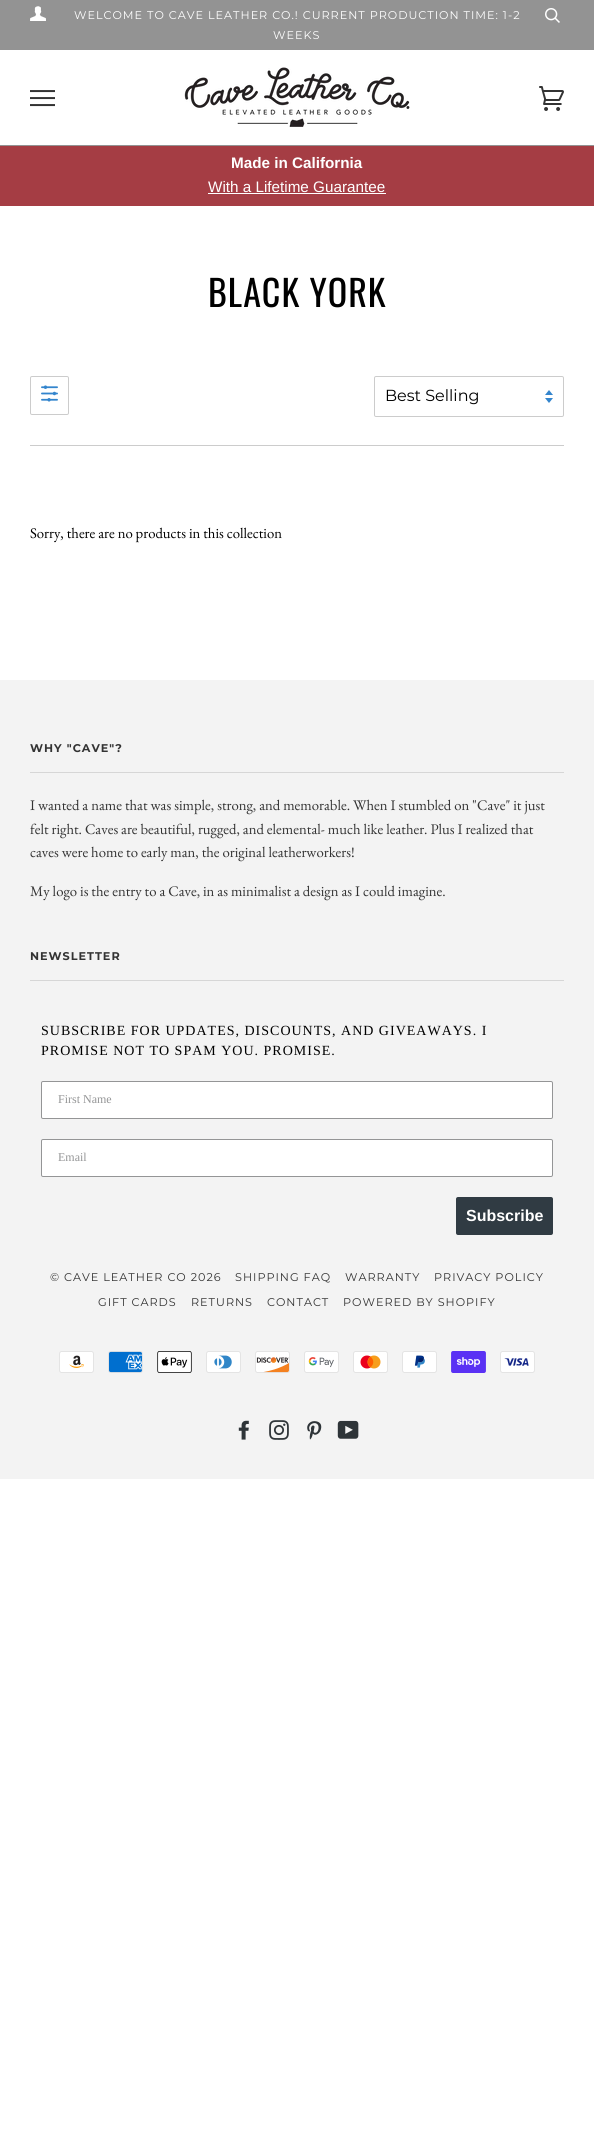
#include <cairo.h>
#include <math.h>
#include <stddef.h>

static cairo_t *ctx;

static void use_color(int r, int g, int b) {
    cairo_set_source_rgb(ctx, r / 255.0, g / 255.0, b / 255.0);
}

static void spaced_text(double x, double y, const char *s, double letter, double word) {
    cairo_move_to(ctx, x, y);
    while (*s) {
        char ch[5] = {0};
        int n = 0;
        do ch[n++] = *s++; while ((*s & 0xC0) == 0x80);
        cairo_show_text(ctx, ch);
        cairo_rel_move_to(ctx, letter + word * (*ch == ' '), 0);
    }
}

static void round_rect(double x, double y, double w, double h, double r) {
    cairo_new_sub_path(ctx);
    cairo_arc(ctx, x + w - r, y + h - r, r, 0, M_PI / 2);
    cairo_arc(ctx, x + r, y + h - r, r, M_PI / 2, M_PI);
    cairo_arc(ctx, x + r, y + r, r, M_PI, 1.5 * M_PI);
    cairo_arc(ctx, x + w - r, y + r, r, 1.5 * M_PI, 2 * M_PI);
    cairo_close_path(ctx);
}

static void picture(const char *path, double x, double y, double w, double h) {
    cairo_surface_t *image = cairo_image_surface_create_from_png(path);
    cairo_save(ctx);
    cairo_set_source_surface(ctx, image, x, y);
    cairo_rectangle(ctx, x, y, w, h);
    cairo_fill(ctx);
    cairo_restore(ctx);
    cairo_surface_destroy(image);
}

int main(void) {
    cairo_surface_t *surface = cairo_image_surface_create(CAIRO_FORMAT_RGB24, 594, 2137);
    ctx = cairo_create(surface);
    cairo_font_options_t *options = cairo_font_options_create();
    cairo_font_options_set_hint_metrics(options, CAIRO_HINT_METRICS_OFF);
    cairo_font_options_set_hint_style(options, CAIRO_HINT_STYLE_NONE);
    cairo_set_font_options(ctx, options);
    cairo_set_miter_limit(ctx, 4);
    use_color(255, 255, 255);
    cairo_paint(ctx);
    use_color(147, 147, 147);
    cairo_rectangle(ctx, 0, 0, 594, 50);
    cairo_fill(ctx);
    picture("img1.png", 30, 6, 16, 15);
    cairo_select_font_face(ctx, "Montserrat", CAIRO_FONT_SLANT_NORMAL, CAIRO_FONT_WEIGHT_NORMAL);
    cairo_set_font_size(ctx, 11.2);
    use_color(255, 255, 255);
    spaced_text(74, 19, "WELCOME TO CAVE LEATHER CO.! CURRENT PRODUCTION TIME: 1-2", 1, 0);
    spaced_text(273, 39, "WEEKS", 1, 0);
    picture("img2.png", 545, 8, 15, 15);
    use_color(147, 147, 147);
    cairo_rectangle(ctx, 0, 145, 594, 1);
    cairo_fill(ctx);
    picture("img3.png", 30, 90, 25, 17);
    picture("img4.png", 184, 67, 226, 60);
    picture("img5.png", 539, 86, 25, 25);
    use_color(165, 61, 68);
    cairo_rectangle(ctx, 0, 146, 594, 60);
    cairo_fill(ctx);
    cairo_select_font_face(ctx, "Liberation Sans", CAIRO_FONT_SLANT_NORMAL, CAIRO_FONT_WEIGHT_BOLD);
    cairo_set_font_size(ctx, 15.25);
    use_color(255, 255, 255);
    cairo_move_to(ctx, 231, 168);
    cairo_show_text(ctx, "Made in California");
    cairo_select_font_face(ctx, "Liberation Sans", CAIRO_FONT_SLANT_NORMAL, CAIRO_FONT_WEIGHT_NORMAL);
    cairo_move_to(ctx, 208, 192);
    cairo_show_text(ctx, "With a Lifetime Guarantee");
    cairo_rectangle(ctx, 208, 193, 178, 1);
    cairo_fill(ctx);
    cairo_select_font_face(ctx, "Oswald", CAIRO_FONT_SLANT_NORMAL, CAIRO_FONT_WEIGHT_NORMAL);
    cairo_set_font_size(ctx, 36);
    use_color(0, 0, 0);
    spaced_text(208, 307, "BLACK YORK", 1, 0);
    round_rect(30.5, 376.5, 38, 38, 1.5);
    use_color(204, 204, 204);
    cairo_set_line_width(ctx, 1);
    cairo_stroke(ctx);
    picture("img6.png", 41, 385, 17, 17);
    picture("img7.png", 545, 390, 8, 13);
    round_rect(374.5, 376.5, 189, 40, 1.5);
    cairo_stroke(ctx);
    cairo_select_font_face(ctx, "Montserrat", CAIRO_FONT_SLANT_NORMAL, CAIRO_FONT_WEIGHT_NORMAL);
    cairo_set_font_size(ctx, 16);
    use_color(0, 0, 0);
    cairo_move_to(ctx, 385, 401);
    cairo_show_text(ctx, "Best Selling");
    use_color(204, 204, 204);
    cairo_rectangle(ctx, 30, 445, 534, 1);
    cairo_fill(ctx);
    cairo_select_font_face(ctx, "EB Garamond", CAIRO_FONT_SLANT_NORMAL, CAIRO_FONT_WEIGHT_NORMAL);
    cairo_set_font_size(ctx, 14.7);
    use_color(0, 0, 0);
    cairo_move_to(ctx, 30, 538);
    cairo_show_text(ctx, "Sorry, there are no products in this collection");
    use_color(243, 243, 243);
    cairo_rectangle(ctx, 0, 680, 594, 799);
    cairo_fill(ctx);
    cairo_select_font_face(ctx, "Montserrat", CAIRO_FONT_SLANT_NORMAL, CAIRO_FONT_WEIGHT_BOLD);
    cairo_set_font_size(ctx, 11.2);
    use_color(51, 51, 51);
    spaced_text(30, 752, "WHY \"CAVE\"?", 1, 0);
    use_color(214, 214, 214);
    cairo_rectangle(ctx, 30, 772, 534, 1);
    cairo_fill(ctx);
    cairo_select_font_face(ctx, "EB Garamond", CAIRO_FONT_SLANT_NORMAL, CAIRO_FONT_WEIGHT_NORMAL);
    cairo_set_font_size(ctx, 14.7);
    use_color(51, 51, 51);
    cairo_move_to(ctx, 30, 810);
    cairo_show_text(ctx, "I wanted a name that was simple, strong, and memorable. When I stumbled on \"Cave\" it just");
    cairo_move_to(ctx, 30, 834);
    cairo_show_text(ctx, "felt right. Caves are beautiful, rugged, and elemental- much like leather. Plus I realized that");
    cairo_move_to(ctx, 30, 857);
    cairo_show_text(ctx, "caves were home to early man, the original leatherworkers!");
    cairo_move_to(ctx, 30, 896);
    cairo_show_text(ctx, "My logo is the entry to a Cave, in as minimalist a design as I could imagine.");
    cairo_select_font_face(ctx, "Montserrat", CAIRO_FONT_SLANT_NORMAL, CAIRO_FONT_WEIGHT_BOLD);
    cairo_set_font_size(ctx, 11.2);
    spaced_text(30, 960, "NEWSLETTER", 1, 0);
    use_color(214, 214, 214);
    cairo_rectangle(ctx, 30, 980, 534, 1);
    cairo_fill(ctx);
    cairo_select_font_face(ctx, "Liberation Serif", CAIRO_FONT_SLANT_NORMAL, CAIRO_FONT_WEIGHT_NORMAL);
    cairo_set_font_size(ctx, 14);
    use_color(0, 0, 0);
    spaced_text(41, 1035, "SUBSCRIBE FOR UPDATES, DISCOUNTS, AND GIVEAWAYS. I", 1, 0);
    spaced_text(41, 1055, "PROMISE NOT TO SPAM YOU. PROMISE.", 1, 0);
    use_color(255, 255, 255);
    round_rect(41.5, 1081.5, 511, 37, 1.5);
    cairo_fill_preserve(ctx);
    use_color(148, 149, 150);
    cairo_stroke(ctx);
    cairo_set_font_size(ctx, 12);
    cairo_move_to(ctx, 58, 1103);
    cairo_show_text(ctx, "First Name");
    use_color(255, 255, 255);
    round_rect(41.5, 1139.5, 511, 37, 1.5);
    cairo_fill_preserve(ctx);
    use_color(148, 149, 150);
    cairo_stroke(ctx);
    cairo_move_to(ctx, 58, 1161);
    cairo_show_text(ctx, "Email");
    use_color(48, 59, 67);
    round_rect(456, 1197, 97, 38, 2);
    cairo_fill(ctx);
    cairo_select_font_face(ctx, "Liberation Sans", CAIRO_FONT_SLANT_NORMAL, CAIRO_FONT_WEIGHT_BOLD);
    cairo_set_font_size(ctx, 16);
    use_color(255, 255, 255);
    cairo_move_to(ctx, 466, 1221);
    cairo_show_text(ctx, "Subscribe");
    cairo_select_font_face(ctx, "Montserrat", CAIRO_FONT_SLANT_NORMAL, CAIRO_FONT_WEIGHT_NORMAL);
    cairo_set_font_size(ctx, 11.2);
    use_color(51, 51, 51);
    spaced_text(50, 1281, "© CAVE LEATHER CO 2026", 1, 0);
    spaced_text(235, 1281, "SHIPPING FAQ", 1, 0);
    spaced_text(345, 1281, "WARRANTY", 1, 0);
    spaced_text(434, 1281, "PRIVACY POLICY", 1, 0);
    spaced_text(98, 1306, "GIFT CARDS", 1, 0);
    spaced_text(191, 1306, "RETURNS", 1, 0);
    spaced_text(267, 1306, "CONTACT", 1, 0);
    spaced_text(343, 1306, "POWERED BY SHOPIFY", 1, 0);
    picture("img8.png", 59, 1351, 35, 22);
    picture("img9.png", 108, 1351, 35, 22);
    picture("img10.png", 157, 1351, 35, 22);
    picture("img11.png", 206, 1351, 35, 22);
    picture("img12.png", 255, 1351, 35, 22);
    picture("img13.png", 304, 1351, 35, 22);
    picture("img14.png", 353, 1351, 35, 22);
    picture("img15.png", 402, 1351, 35, 22);
    picture("img16.png", 451, 1351, 35, 22);
    picture("img17.png", 500, 1351, 35, 22);
    picture("img18.png", 238, 1420, 11, 20);
    picture("img19.png", 269, 1420, 20, 20);
    picture("img20.png", 307, 1421, 15, 19);
    picture("img21.png", 337, 1420, 22, 19);
    cairo_surface_write_to_png(surface, "result.png");
    cairo_font_options_destroy(options);
    cairo_destroy(ctx);
    cairo_surface_destroy(surface);
    return 0;
}
